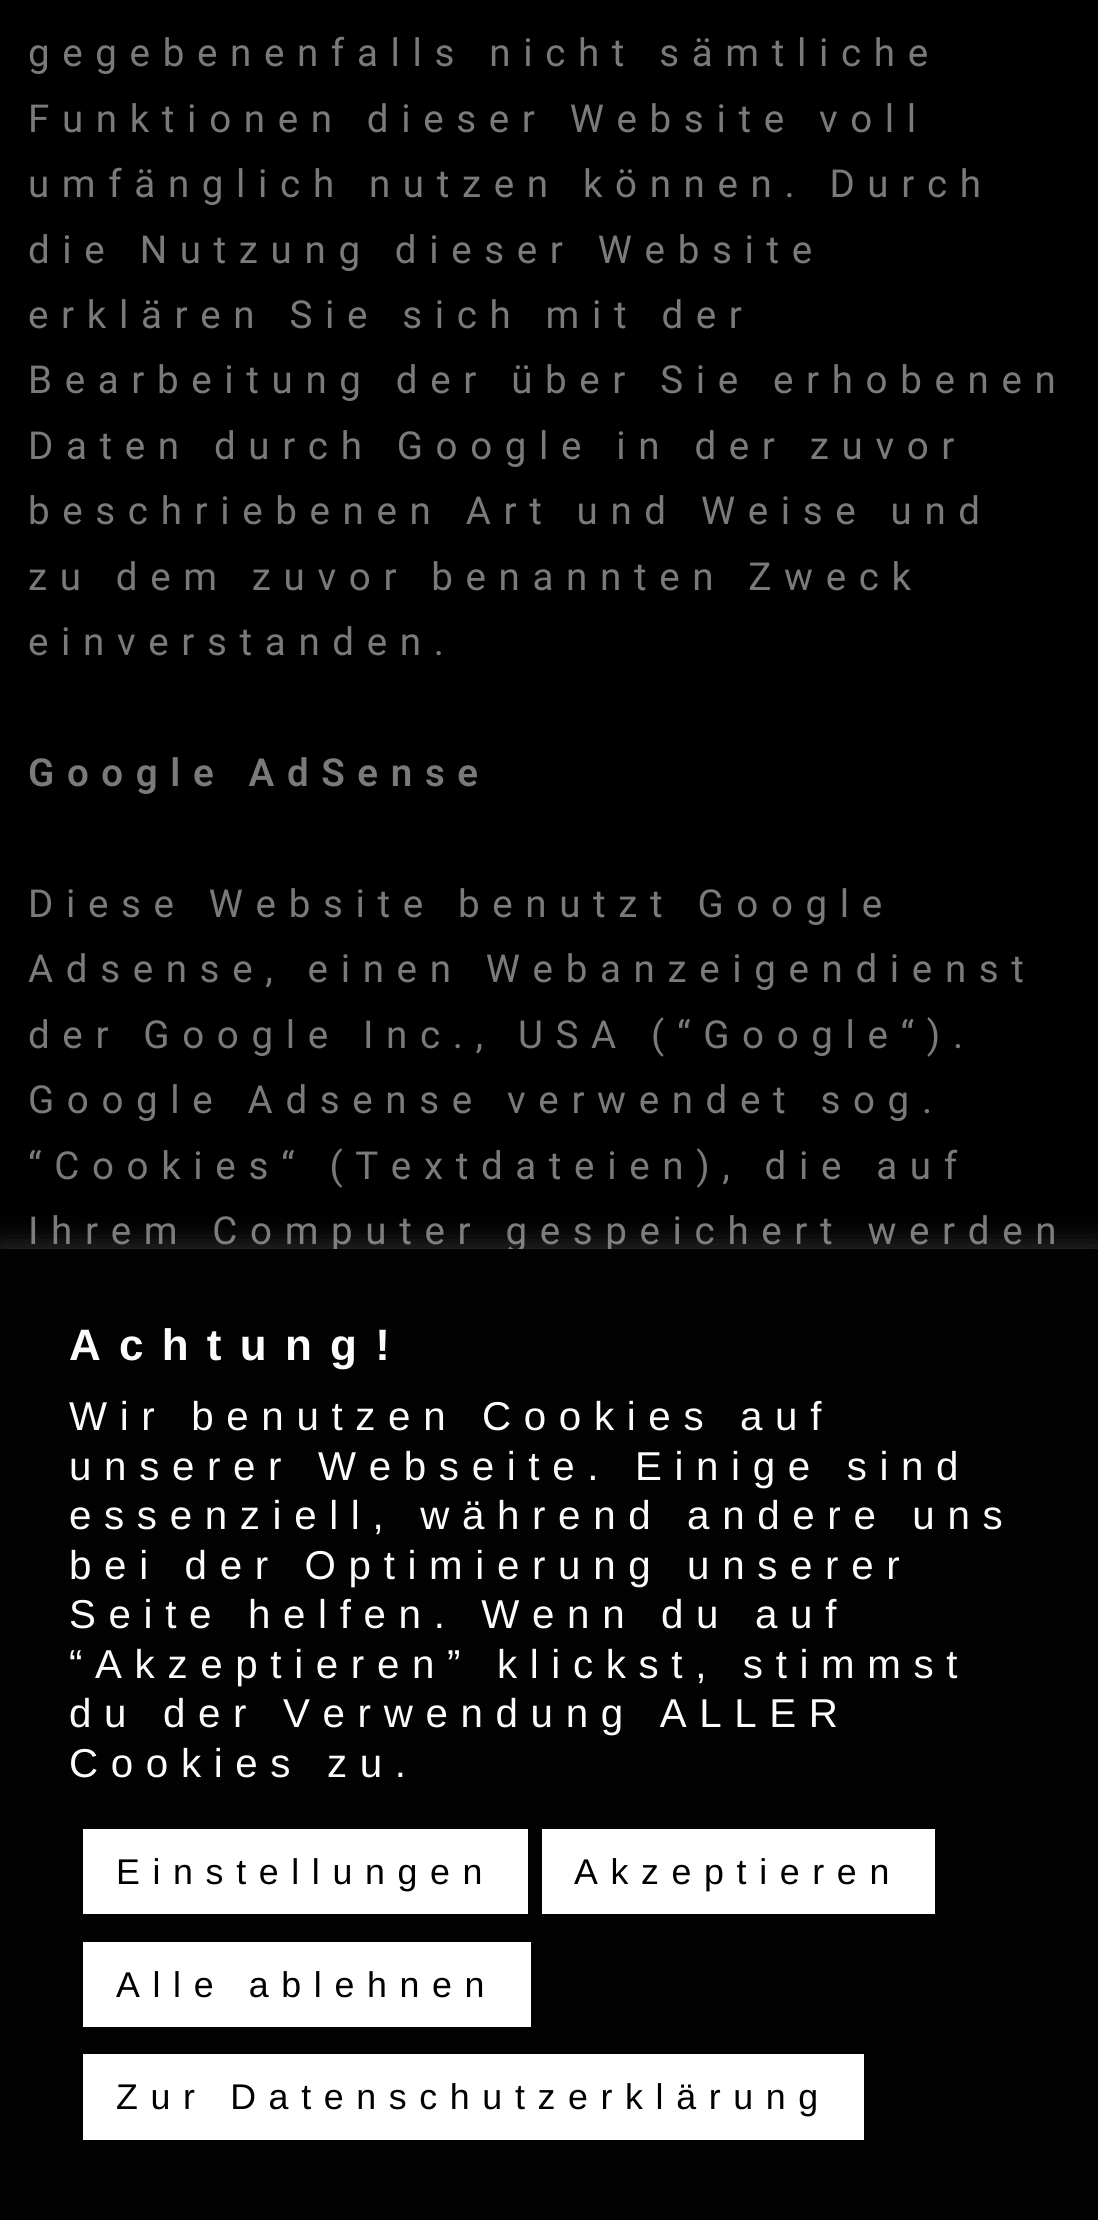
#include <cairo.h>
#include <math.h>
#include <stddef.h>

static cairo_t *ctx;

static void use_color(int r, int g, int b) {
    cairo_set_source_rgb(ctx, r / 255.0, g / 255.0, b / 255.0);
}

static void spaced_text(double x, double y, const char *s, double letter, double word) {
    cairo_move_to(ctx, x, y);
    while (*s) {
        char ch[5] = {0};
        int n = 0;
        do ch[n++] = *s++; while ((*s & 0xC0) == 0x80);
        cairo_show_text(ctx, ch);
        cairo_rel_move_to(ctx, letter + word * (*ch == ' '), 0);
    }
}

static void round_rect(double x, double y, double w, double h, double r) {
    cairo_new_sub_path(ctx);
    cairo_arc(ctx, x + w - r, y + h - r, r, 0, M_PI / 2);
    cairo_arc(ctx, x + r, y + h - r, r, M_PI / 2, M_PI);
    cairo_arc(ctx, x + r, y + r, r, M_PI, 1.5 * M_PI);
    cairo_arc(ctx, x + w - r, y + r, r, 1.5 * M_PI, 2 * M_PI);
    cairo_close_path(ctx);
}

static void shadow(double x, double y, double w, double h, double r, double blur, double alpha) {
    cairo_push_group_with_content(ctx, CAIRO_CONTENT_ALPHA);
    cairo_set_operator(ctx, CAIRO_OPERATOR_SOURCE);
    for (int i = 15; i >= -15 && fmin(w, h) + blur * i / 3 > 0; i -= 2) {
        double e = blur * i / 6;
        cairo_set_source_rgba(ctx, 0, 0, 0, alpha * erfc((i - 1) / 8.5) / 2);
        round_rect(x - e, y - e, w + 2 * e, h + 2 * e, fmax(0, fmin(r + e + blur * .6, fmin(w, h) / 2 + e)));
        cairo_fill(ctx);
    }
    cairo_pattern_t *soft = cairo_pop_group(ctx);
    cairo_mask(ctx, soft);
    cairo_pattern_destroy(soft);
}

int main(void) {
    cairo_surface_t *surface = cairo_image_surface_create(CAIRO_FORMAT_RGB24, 1098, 2220);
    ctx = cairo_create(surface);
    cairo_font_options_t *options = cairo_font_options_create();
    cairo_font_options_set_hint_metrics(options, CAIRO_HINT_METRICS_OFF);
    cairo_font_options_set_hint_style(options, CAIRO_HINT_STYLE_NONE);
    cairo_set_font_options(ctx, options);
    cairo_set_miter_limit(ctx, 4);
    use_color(0, 0, 0);
    cairo_paint(ctx);
    cairo_select_font_face(ctx, "Roboto", CAIRO_FONT_SLANT_NORMAL, CAIRO_FONT_WEIGHT_NORMAL);
    cairo_set_font_size(ctx, 38.5);
    use_color(122, 122, 122);
    spaced_text(28, 66, "gegebenenfalls nicht sämtliche", 12.65, 0);
    spaced_text(28, 132, "Funktionen dieser Website voll", 12.65, 0);
    spaced_text(28, 197, "umfänglich nutzen können. Durch", 12.65, 0);
    spaced_text(28, 263, "die Nutzung dieser Website", 12.65, 0);
    spaced_text(28, 328, "erklären Sie sich mit der", 12.65, 0);
    spaced_text(28, 393, "Bearbeitung der über Sie erhobenen", 12.65, 0);
    spaced_text(28, 459, "Daten durch Google in der zuvor", 12.65, 0);
    spaced_text(28, 524, "beschriebenen Art und Weise und", 12.65, 0);
    spaced_text(28, 590, "zu dem zuvor benannten Zweck", 12.65, 0);
    spaced_text(28, 655, "einverstanden.", 12.65, 0);
    cairo_select_font_face(ctx, "Roboto SemiBold", CAIRO_FONT_SLANT_NORMAL, CAIRO_FONT_WEIGHT_NORMAL);
    spaced_text(28, 786, "Google AdSense", 12.65, 0);
    cairo_select_font_face(ctx, "Roboto", CAIRO_FONT_SLANT_NORMAL, CAIRO_FONT_WEIGHT_NORMAL);
    spaced_text(28, 917, "Diese Website benutzt Google", 12.65, 0);
    spaced_text(28, 982, "Adsense, einen Webanzeigendienst", 12.65, 0);
    spaced_text(28, 1048, "der Google Inc., USA (“Google“).", 12.65, 0);
    spaced_text(28, 1113, "Google Adsense verwendet sog.", 12.65, 0);
    spaced_text(28, 1179, "“Cookies“ (Textdateien), die auf", 12.65, 0);
    spaced_text(28, 1244, "Ihrem Computer gespeichert werden", 12.65, 0);
    use_color(172, 171, 171);
    shadow(0, 1246, 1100, 973, 0, 14, 0.3);
    use_color(2, 2, 2);
    cairo_rectangle(ctx, 0, 1249, 1098, 971);
    cairo_fill(ctx);
    cairo_select_font_face(ctx, "Liberation Sans", CAIRO_FONT_SLANT_NORMAL, CAIRO_FONT_WEIGHT_BOLD);
    cairo_set_font_size(ctx, 44);
    use_color(252, 252, 252);
    spaced_text(69, 1360, "Achtung!", 18.25, 0);
    cairo_select_font_face(ctx, "Liberation Sans", CAIRO_FONT_SLANT_NORMAL, CAIRO_FONT_WEIGHT_NORMAL);
    cairo_set_font_size(ctx, 40.3);
    spaced_text(69, 1430, "Wir benutzen Cookies auf", 12.65, 0);
    spaced_text(69, 1480, "unserer Webseite. Einige sind", 12.65, 0);
    spaced_text(69, 1529, "essenziell, während andere uns", 12.65, 0);
    spaced_text(69, 1579, "bei der Optimierung unserer", 12.65, 0);
    spaced_text(69, 1628, "Seite helfen. Wenn du auf", 12.65, 0);
    spaced_text(69, 1678, "“Akzeptieren” klickst, stimmst", 12.65, 0);
    spaced_text(69, 1727, "du der Verwendung ALLER", 12.65, 0);
    spaced_text(69, 1777, "Cookies zu.", 12.65, 0);
    use_color(255, 255, 255);
    cairo_rectangle(ctx, 83, 1829, 445, 85);
    cairo_fill(ctx);
    cairo_set_font_size(ctx, 35.75);
    use_color(0, 0, 0);
    spaced_text(116, 1884, "Einstellungen", 12.65, 0);
    use_color(255, 255, 255);
    cairo_rectangle(ctx, 542, 1829, 393, 85);
    cairo_fill(ctx);
    use_color(0, 0, 0);
    spaced_text(574, 1884, "Akzeptieren", 12.65, 0);
    use_color(255, 255, 255);
    cairo_rectangle(ctx, 83, 1942, 448, 85);
    cairo_fill(ctx);
    use_color(0, 0, 0);
    spaced_text(116, 1997, "Alle ablehnen", 12.65, 0);
    use_color(255, 255, 255);
    cairo_rectangle(ctx, 83, 2054, 781, 86);
    cairo_fill(ctx);
    use_color(0, 0, 0);
    spaced_text(116, 2109, "Zur Datenschutzerklärung", 12.65, 0);
    cairo_surface_write_to_png(surface, "result.png");
    cairo_font_options_destroy(options);
    cairo_destroy(ctx);
    cairo_surface_destroy(surface);
    return 0;
}
